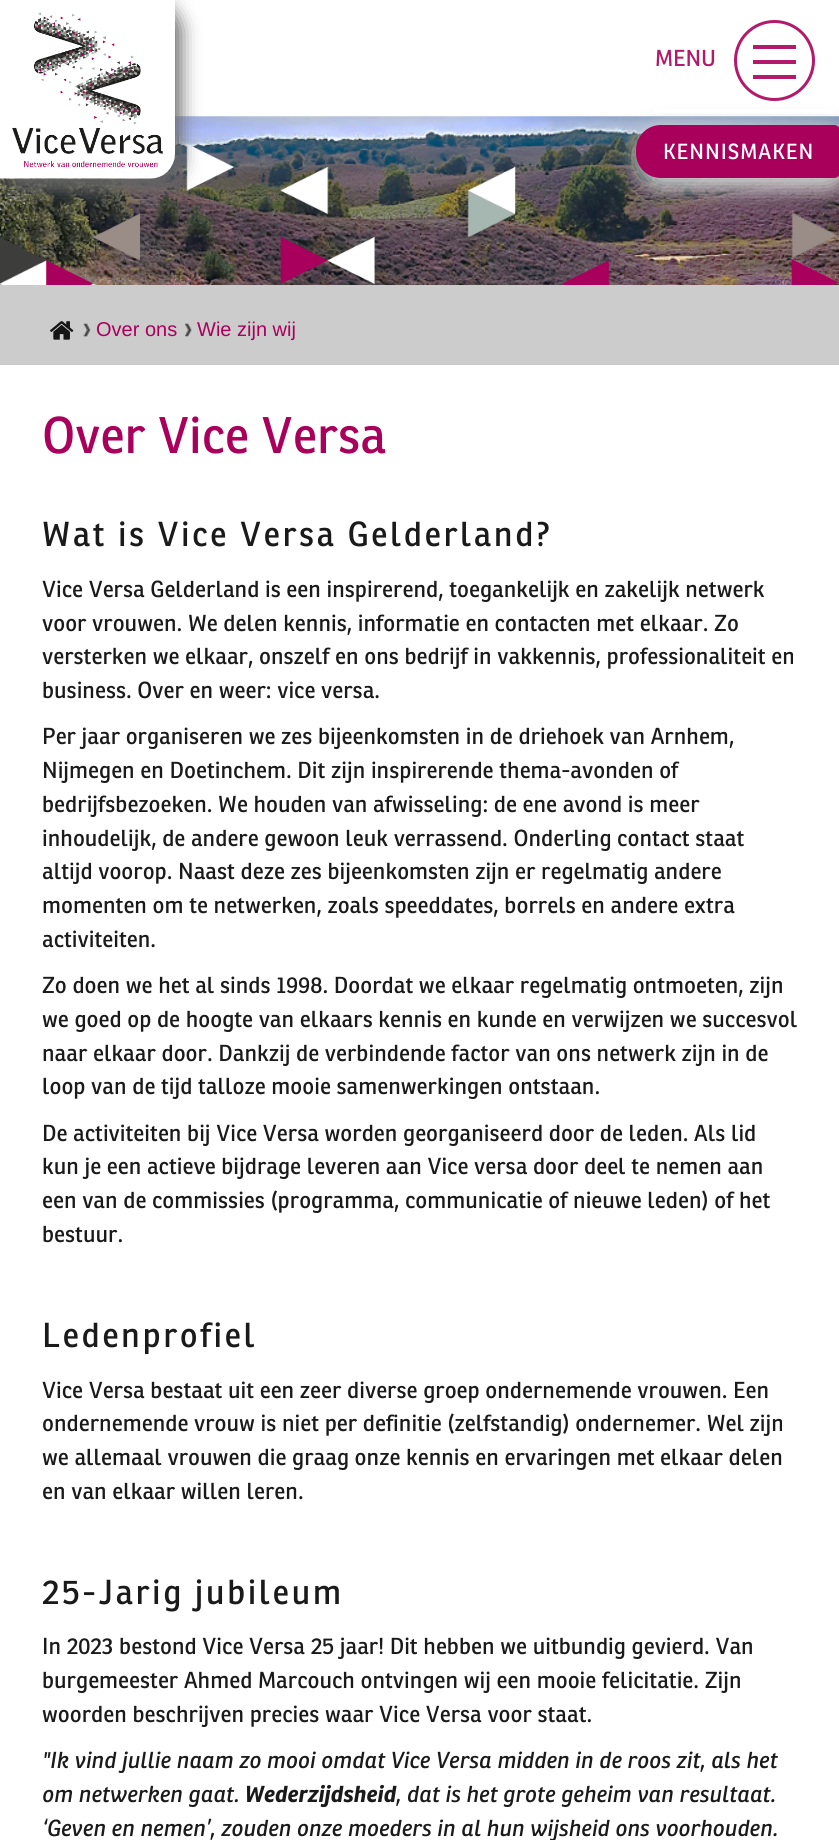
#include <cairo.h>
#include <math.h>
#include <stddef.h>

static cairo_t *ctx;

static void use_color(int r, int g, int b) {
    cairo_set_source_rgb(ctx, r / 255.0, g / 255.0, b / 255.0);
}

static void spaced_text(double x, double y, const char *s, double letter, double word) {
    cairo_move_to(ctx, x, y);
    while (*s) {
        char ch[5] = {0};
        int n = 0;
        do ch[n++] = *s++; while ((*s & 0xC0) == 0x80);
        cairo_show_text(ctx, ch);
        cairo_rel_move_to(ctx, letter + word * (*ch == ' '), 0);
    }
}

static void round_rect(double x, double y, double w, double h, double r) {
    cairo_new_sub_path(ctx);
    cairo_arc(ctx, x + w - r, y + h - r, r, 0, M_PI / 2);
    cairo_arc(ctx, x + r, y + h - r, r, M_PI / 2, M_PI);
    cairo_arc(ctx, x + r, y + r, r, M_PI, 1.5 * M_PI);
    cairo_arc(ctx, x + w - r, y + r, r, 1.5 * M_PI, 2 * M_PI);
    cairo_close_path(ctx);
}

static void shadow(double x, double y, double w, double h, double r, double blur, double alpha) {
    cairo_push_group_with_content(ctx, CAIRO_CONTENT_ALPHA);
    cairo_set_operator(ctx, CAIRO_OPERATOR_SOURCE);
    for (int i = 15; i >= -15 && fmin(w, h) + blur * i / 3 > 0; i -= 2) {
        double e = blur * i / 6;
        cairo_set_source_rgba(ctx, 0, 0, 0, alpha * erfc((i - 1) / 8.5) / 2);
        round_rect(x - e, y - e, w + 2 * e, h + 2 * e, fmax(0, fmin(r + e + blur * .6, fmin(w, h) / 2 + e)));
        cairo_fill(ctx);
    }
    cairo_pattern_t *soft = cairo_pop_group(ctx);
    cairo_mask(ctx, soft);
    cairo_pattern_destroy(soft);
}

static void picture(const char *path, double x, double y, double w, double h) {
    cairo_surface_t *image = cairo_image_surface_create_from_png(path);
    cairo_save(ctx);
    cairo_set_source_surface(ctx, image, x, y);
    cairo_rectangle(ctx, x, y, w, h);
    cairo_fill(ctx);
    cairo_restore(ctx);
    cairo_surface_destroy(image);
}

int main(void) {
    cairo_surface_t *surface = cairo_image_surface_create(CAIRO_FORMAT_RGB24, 839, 1840);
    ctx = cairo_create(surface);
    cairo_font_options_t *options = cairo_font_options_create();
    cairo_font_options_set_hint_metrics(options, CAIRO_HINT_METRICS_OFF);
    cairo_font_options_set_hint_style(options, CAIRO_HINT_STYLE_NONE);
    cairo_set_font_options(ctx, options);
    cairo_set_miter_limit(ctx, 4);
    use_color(255, 255, 255);
    cairo_paint(ctx);
    picture("img2.png", 0, 116, 839, 169);
    picture("img3.png", 0, 143, 839, 142);
    use_color(204, 204, 204);
    shadow(636, 125, 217, 65, 31, 9.5, 1);
    use_color(255, 255, 255);
    cairo_rectangle(ctx, 654, 109, 181, 4);
    cairo_fill(ctx);
    cairo_save(ctx);
    cairo_set_fill_rule(ctx, CAIRO_FILL_RULE_EVEN_ODD);
    cairo_new_path(ctx);
    cairo_move_to(ctx, 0, 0);
    cairo_line_to(ctx, 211, 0);
    cairo_line_to(ctx, 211, 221);
    cairo_line_to(ctx, 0, 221);
    cairo_close_path(ctx);
    cairo_move_to(ctx, 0, 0);
    cairo_line_to(ctx, 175, 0);
    cairo_line_to(ctx, 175, 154);
    cairo_curve_to(ctx, 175, 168, 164, 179, 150, 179);
    cairo_line_to(ctx, 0, 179);
    cairo_close_path(ctx);
    cairo_clip(ctx);
    use_color(102, 102, 102);
    shadow(-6, 0, 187, 191, 31, 9.5, 1);
    cairo_restore(ctx);
    picture("img1.png", 0, 12, 175, 167);
    cairo_select_font_face(ctx, "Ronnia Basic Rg", CAIRO_FONT_SLANT_NORMAL, CAIRO_FONT_WEIGHT_NORMAL);
    cairo_set_font_size(ctx, 22.5);
    use_color(178, 26, 108);
    cairo_move_to(ctx, 655, 66);
    cairo_show_text(ctx, "MENU");
    cairo_new_path(ctx);
    cairo_arc(ctx, 774.5, 60.5, 39, 0, 2 * M_PI);
    cairo_set_line_width(ctx, 3);
    cairo_stroke(ctx);
    cairo_rectangle(ctx, 753, 45, 43, 4);
    cairo_fill(ctx);
    cairo_rectangle(ctx, 753, 60, 43, 4);
    cairo_fill(ctx);
    cairo_rectangle(ctx, 753, 75, 43, 4);
    cairo_fill(ctx);
    use_color(169, 0, 92);
    cairo_new_path(ctx);
    cairo_move_to(ctx, 661, 125);
    cairo_line_to(ctx, 834, 125);
    cairo_curve_to(ctx, 837.5, 125, 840, 127.5, 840, 131);
    cairo_line_to(ctx, 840, 172);
    cairo_curve_to(ctx, 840, 175.5, 837.5, 178, 834, 178);
    cairo_line_to(ctx, 661, 178);
    cairo_curve_to(ctx, 647, 178, 636, 167, 636, 153);
    cairo_line_to(ctx, 636, 150);
    cairo_curve_to(ctx, 636, 136, 647, 125, 661, 125);
    cairo_close_path(ctx);
    cairo_fill(ctx);
    cairo_set_font_size(ctx, 21.25);
    use_color(255, 255, 255);
    spaced_text(663, 159, "KENNISMAKEN", 1, 0);
    use_color(204, 204, 204);
    cairo_rectangle(ctx, 0, 285, 839, 80);
    cairo_fill(ctx);
    picture("img4.png", 50, 321, 24, 19);
    picture("img5.png", 83, 323, 8, 14);
    cairo_select_font_face(ctx, "Liberation Sans", CAIRO_FONT_SLANT_NORMAL, CAIRO_FONT_WEIGHT_NORMAL);
    cairo_set_font_size(ctx, 20);
    use_color(169, 0, 92);
    cairo_move_to(ctx, 96, 336);
    cairo_show_text(ctx, "Over ons");
    picture("img6.png", 185, 323, 7, 14);
    cairo_move_to(ctx, 197, 336);
    cairo_show_text(ctx, "Wie zijn wij");
    cairo_select_font_face(ctx, "Ronnia Basic Rg", CAIRO_FONT_SLANT_NORMAL, CAIRO_FONT_WEIGHT_NORMAL);
    cairo_set_font_size(ctx, 50);
    cairo_move_to(ctx, 42, 453);
    cairo_show_text(ctx, "Over Vice Versa");
    cairo_set_font_size(ctx, 33.75);
    use_color(26, 26, 26);
    spaced_text(42, 546, "Wat is Vice Versa Gelderland?", 2.5, 0);
    cairo_set_font_size(ctx, 22.5);
    cairo_move_to(ctx, 42, 597);
    cairo_show_text(ctx, "Vice Versa Gelderland is een inspirerend, toegankelijk en zakelijk netwerk");
    cairo_move_to(ctx, 42, 631);
    cairo_show_text(ctx, "voor vrouwen. We delen kennis, informatie en contacten met elkaar. Zo");
    cairo_move_to(ctx, 42, 664);
    cairo_show_text(ctx, "versterken we elkaar, onszelf en ons bedrijf in vakkennis, professionaliteit en");
    cairo_move_to(ctx, 42, 698);
    cairo_show_text(ctx, "business. Over en weer: vice versa.");
    cairo_move_to(ctx, 42, 744);
    cairo_show_text(ctx, "Per jaar organiseren we zes bijeenkomsten in de driehoek van Arnhem,");
    cairo_move_to(ctx, 42, 778);
    cairo_show_text(ctx, "Nijmegen en Doetinchem. Dit zijn inspirerende thema-avonden of");
    cairo_move_to(ctx, 42, 812);
    cairo_show_text(ctx, "bedrijfsbezoeken. We houden van afwisseling: de ene avond is meer");
    cairo_move_to(ctx, 42, 846);
    cairo_show_text(ctx, "inhoudelijk, de andere gewoon leuk verrassend. Onderling contact staat");
    cairo_move_to(ctx, 42, 879);
    cairo_show_text(ctx, "altijd voorop. Naast deze zes bijeenkomsten zijn er regelmatig andere");
    cairo_move_to(ctx, 42, 913);
    cairo_show_text(ctx, "momenten om te netwerken, zoals speeddates, borrels en andere extra");
    cairo_move_to(ctx, 42, 947);
    cairo_show_text(ctx, "activiteiten.");
    cairo_move_to(ctx, 42, 993);
    cairo_show_text(ctx, "Zo doen we het al sinds 1998. Doordat we elkaar regelmatig ontmoeten, zijn");
    cairo_move_to(ctx, 42, 1027);
    cairo_show_text(ctx, "we goed op de hoogte van elkaars kennis en kunde en verwijzen we succesvol");
    cairo_move_to(ctx, 42, 1061);
    cairo_show_text(ctx, "naar elkaar door. Dankzij de verbindende factor van ons netwerk zijn in de");
    cairo_move_to(ctx, 42, 1094);
    cairo_show_text(ctx, "loop van de tijd talloze mooie samenwerkingen ontstaan.");
    cairo_move_to(ctx, 42, 1141);
    cairo_show_text(ctx, "De activiteiten bij Vice Versa worden georganiseerd door de leden. Als lid");
    cairo_move_to(ctx, 42, 1174);
    cairo_show_text(ctx, "kun je een actieve bijdrage leveren aan Vice versa door deel te nemen aan");
    cairo_move_to(ctx, 42, 1208);
    cairo_show_text(ctx, "een van de commissies (programma, communicatie of nieuwe leden) of het");
    cairo_move_to(ctx, 42, 1242);
    cairo_show_text(ctx, "bestuur.");
    cairo_set_font_size(ctx, 33.75);
    spaced_text(42, 1347, "Ledenprofiel", 2.5, 0);
    cairo_set_font_size(ctx, 22.5);
    cairo_move_to(ctx, 42, 1398);
    cairo_show_text(ctx, "Vice Versa bestaat uit een zeer diverse groep ondernemende vrouwen. Een");
    cairo_move_to(ctx, 42, 1431);
    cairo_show_text(ctx, "ondernemende vrouw is niet per definitie (zelfstandig) ondernemer. Wel zijn");
    cairo_move_to(ctx, 42, 1465);
    cairo_show_text(ctx, "we allemaal vrouwen die graag onze kennis en ervaringen met elkaar delen");
    cairo_move_to(ctx, 42, 1499);
    cairo_show_text(ctx, "en van elkaar willen leren.");
    cairo_set_font_size(ctx, 33.75);
    spaced_text(42, 1604, "25-Jarig jubileum", 2.5, 0);
    cairo_set_font_size(ctx, 22.5);
    cairo_move_to(ctx, 42, 1654);
    cairo_show_text(ctx, "In 2023 bestond Vice Versa 25 jaar! Dit hebben we uitbundig gevierd. Van");
    cairo_move_to(ctx, 42, 1688);
    cairo_show_text(ctx, "burgemeester Ahmed Marcouch ontvingen wij een mooie felicitatie. Zijn");
    cairo_move_to(ctx, 42, 1722);
    cairo_show_text(ctx, "woorden beschrijven precies waar Vice Versa voor staat.");
    cairo_select_font_face(ctx, "Ronnia Basic Rg", CAIRO_FONT_SLANT_ITALIC, CAIRO_FONT_WEIGHT_NORMAL);
    cairo_move_to(ctx, 42, 1768);
    cairo_show_text(ctx, "\"Ik vind jullie naam zo mooi omdat Vice Versa midden in de roos zit, als het");
    cairo_move_to(ctx, 42, 1802);
    cairo_show_text(ctx, "om netwerken gaat.");
    cairo_select_font_face(ctx, "Ronnia Basic Rg", CAIRO_FONT_SLANT_ITALIC, CAIRO_FONT_WEIGHT_BOLD);
    cairo_move_to(ctx, 245, 1802);
    cairo_show_text(ctx, "Wederzijdsheid");
    cairo_select_font_face(ctx, "Ronnia Basic Rg", CAIRO_FONT_SLANT_ITALIC, CAIRO_FONT_WEIGHT_NORMAL);
    cairo_move_to(ctx, 396, 1802);
    cairo_show_text(ctx, ", dat is het grote geheim van resultaat.");
    cairo_move_to(ctx, 42, 1836);
    cairo_show_text(ctx, "‘Geven en nemen’, zouden onze moeders in al hun wijsheid ons voorhouden.");
    cairo_surface_write_to_png(surface, "result.png");
    cairo_font_options_destroy(options);
    cairo_destroy(ctx);
    cairo_surface_destroy(surface);
    return 0;
}
